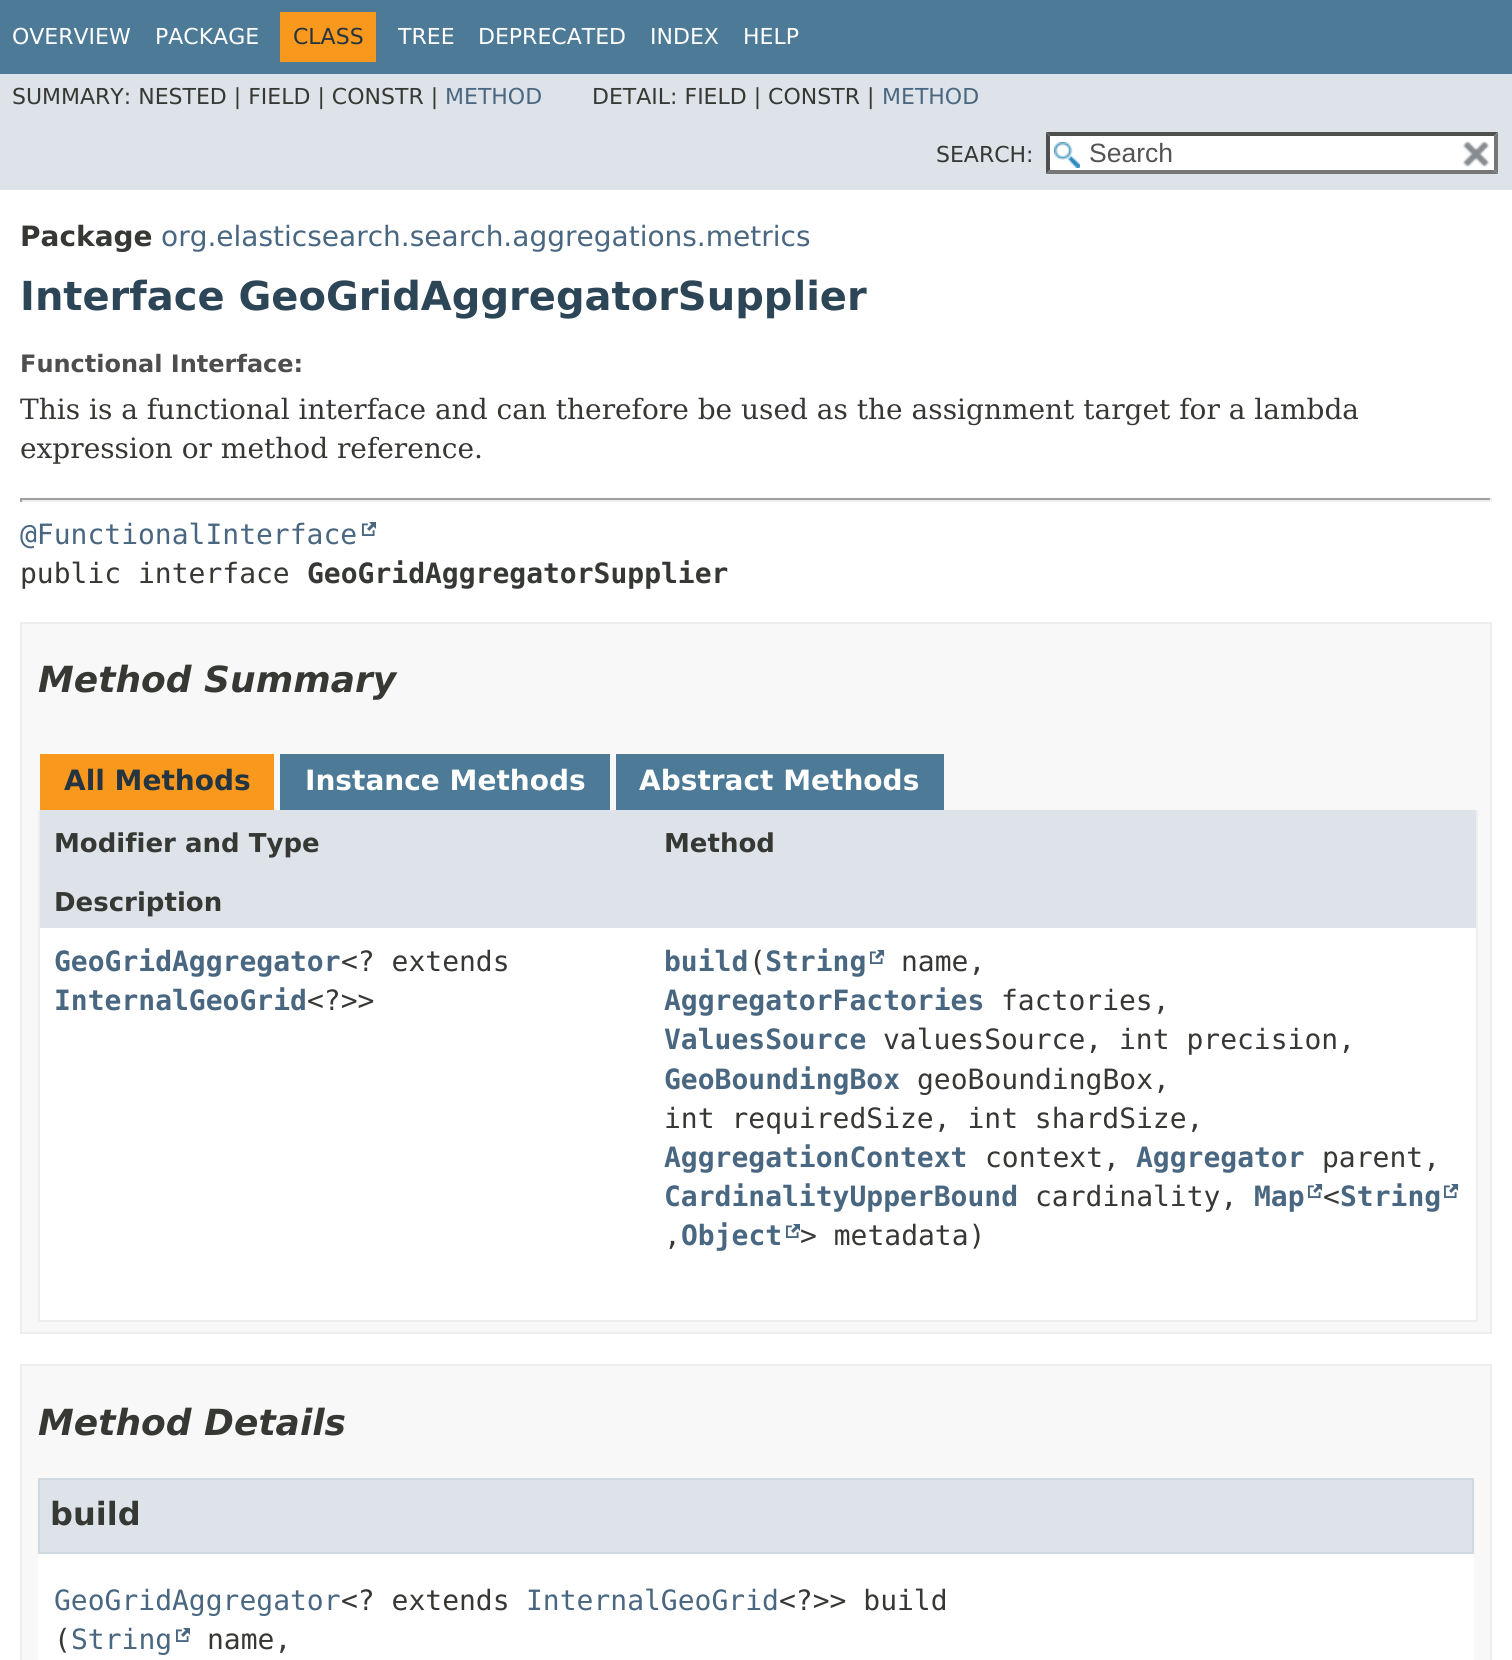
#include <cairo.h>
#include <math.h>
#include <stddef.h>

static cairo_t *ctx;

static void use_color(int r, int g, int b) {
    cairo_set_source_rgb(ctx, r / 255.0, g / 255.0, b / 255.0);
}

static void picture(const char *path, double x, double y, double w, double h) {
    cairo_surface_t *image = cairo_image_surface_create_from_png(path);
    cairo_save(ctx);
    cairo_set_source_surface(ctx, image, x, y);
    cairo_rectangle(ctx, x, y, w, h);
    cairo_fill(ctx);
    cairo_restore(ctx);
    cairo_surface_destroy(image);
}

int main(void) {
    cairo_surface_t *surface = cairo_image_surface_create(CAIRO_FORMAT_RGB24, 1512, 1660);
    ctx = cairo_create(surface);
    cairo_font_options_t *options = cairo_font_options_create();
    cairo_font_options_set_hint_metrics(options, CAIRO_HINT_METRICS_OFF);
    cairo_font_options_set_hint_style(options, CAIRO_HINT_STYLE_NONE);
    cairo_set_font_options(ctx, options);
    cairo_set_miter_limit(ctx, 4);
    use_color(255, 255, 255);
    cairo_paint(ctx);
    use_color(77, 122, 151);
    cairo_rectangle(ctx, 0, 0, 1512, 74);
    cairo_fill(ctx);
    cairo_select_font_face(ctx, "DejaVu Sans", CAIRO_FONT_SLANT_NORMAL, CAIRO_FONT_WEIGHT_NORMAL);
    cairo_set_font_size(ctx, 22);
    use_color(255, 255, 255);
    cairo_move_to(ctx, 12, 44);
    cairo_show_text(ctx, "OVERVIEW");
    cairo_move_to(ctx, 155, 44);
    cairo_show_text(ctx, "PACKAGE");
    use_color(248, 152, 29);
    cairo_rectangle(ctx, 280, 12, 96, 50);
    cairo_fill(ctx);
    use_color(37, 52, 65);
    cairo_move_to(ctx, 293, 44);
    cairo_show_text(ctx, "CLASS");
    use_color(255, 255, 255);
    cairo_move_to(ctx, 398, 44);
    cairo_show_text(ctx, "TREE");
    cairo_move_to(ctx, 478, 44);
    cairo_show_text(ctx, "DEPRECATED");
    cairo_move_to(ctx, 650, 44);
    cairo_show_text(ctx, "INDEX");
    cairo_move_to(ctx, 743, 44);
    cairo_show_text(ctx, "HELP");
    use_color(222, 227, 233);
    cairo_rectangle(ctx, 0, 74, 1512, 116);
    cairo_fill(ctx);
    use_color(53, 56, 51);
    cairo_move_to(ctx, 12, 104);
    cairo_show_text(ctx, "SUMMARY: NESTED | FIELD | CONSTR |");
    use_color(74, 103, 130);
    cairo_move_to(ctx, 445, 104);
    cairo_show_text(ctx, "METHOD");
    use_color(53, 56, 51);
    cairo_move_to(ctx, 592, 104);
    cairo_show_text(ctx, "DETAIL: FIELD | CONSTR |");
    use_color(74, 103, 130);
    cairo_move_to(ctx, 882, 104);
    cairo_show_text(ctx, "METHOD");
    use_color(53, 56, 51);
    cairo_move_to(ctx, 936, 162);
    cairo_show_text(ctx, "SEARCH:");
    use_color(255, 255, 255);
    cairo_rectangle(ctx, 1046, 132, 452, 42);
    cairo_fill(ctx);
    picture("img1.png", 1054, 142, 26, 26);
    use_color(79, 79, 79);
    cairo_new_path(ctx);
    cairo_move_to(ctx, 1046, 132);
    cairo_line_to(ctx, 1498, 132);
    cairo_line_to(ctx, 1494, 136);
    cairo_line_to(ctx, 1050, 136);
    cairo_close_path(ctx);
    cairo_fill(ctx);
    use_color(118, 118, 118);
    cairo_new_path(ctx);
    cairo_move_to(ctx, 1498, 132);
    cairo_line_to(ctx, 1498, 174);
    cairo_line_to(ctx, 1494, 170);
    cairo_line_to(ctx, 1494, 136);
    cairo_close_path(ctx);
    cairo_fill(ctx);
    cairo_new_path(ctx);
    cairo_move_to(ctx, 1498, 174);
    cairo_line_to(ctx, 1046, 174);
    cairo_line_to(ctx, 1050, 170);
    cairo_line_to(ctx, 1494, 170);
    cairo_close_path(ctx);
    cairo_fill(ctx);
    use_color(79, 79, 79);
    cairo_new_path(ctx);
    cairo_move_to(ctx, 1046, 174);
    cairo_line_to(ctx, 1046, 132);
    cairo_line_to(ctx, 1050, 136);
    cairo_line_to(ctx, 1050, 170);
    cairo_close_path(ctx);
    cairo_fill(ctx);
    cairo_select_font_face(ctx, "Liberation Sans", CAIRO_FONT_SLANT_NORMAL, CAIRO_FONT_WEIGHT_NORMAL);
    cairo_set_font_size(ctx, 26.5);
    use_color(84, 84, 84);
    cairo_move_to(ctx, 1089, 162);
    cairo_show_text(ctx, "Search");
    picture("img2.png", 1462, 141, 27, 26);
    cairo_select_font_face(ctx, "DejaVu Sans", CAIRO_FONT_SLANT_NORMAL, CAIRO_FONT_WEIGHT_BOLD);
    cairo_set_font_size(ctx, 28);
    use_color(53, 56, 51);
    cairo_move_to(ctx, 20, 246);
    cairo_show_text(ctx, "Package");
    cairo_select_font_face(ctx, "DejaVu Sans", CAIRO_FONT_SLANT_NORMAL, CAIRO_FONT_WEIGHT_NORMAL);
    use_color(74, 103, 130);
    cairo_move_to(ctx, 161, 246);
    cairo_show_text(ctx, "org.elasticsearch.search.aggregations.metrics");
    cairo_select_font_face(ctx, "DejaVu Sans", CAIRO_FONT_SLANT_NORMAL, CAIRO_FONT_WEIGHT_BOLD);
    cairo_set_font_size(ctx, 40);
    use_color(44, 69, 87);
    cairo_move_to(ctx, 20, 310);
    cairo_show_text(ctx, "Interface GeoGridAggregatorSupplier");
    cairo_set_font_size(ctx, 24);
    use_color(78, 78, 78);
    cairo_move_to(ctx, 20, 372);
    cairo_show_text(ctx, "Functional Interface:");
    cairo_select_font_face(ctx, "DejaVu Serif", CAIRO_FONT_SLANT_NORMAL, CAIRO_FONT_WEIGHT_NORMAL);
    cairo_set_font_size(ctx, 28);
    use_color(53, 56, 51);
    cairo_move_to(ctx, 20, 419);
    cairo_show_text(ctx, "This is a functional interface and can therefore be used as the assignment target for a lambda");
    cairo_move_to(ctx, 20, 458);
    cairo_show_text(ctx, "expression or method reference.");
    use_color(159, 159, 159);
    cairo_rectangle(ctx, 20, 498, 1472, 2);
    cairo_fill(ctx);
    use_color(238, 238, 238);
    cairo_rectangle(ctx, 1490, 498, 2, 4);
    cairo_fill(ctx);
    cairo_rectangle(ctx, 20, 500, 1472, 2);
    cairo_fill(ctx);
    use_color(159, 159, 159);
    cairo_rectangle(ctx, 20, 498, 2, 4);
    cairo_fill(ctx);
    cairo_select_font_face(ctx, "DejaVu Sans Mono", CAIRO_FONT_SLANT_NORMAL, CAIRO_FONT_WEIGHT_NORMAL);
    use_color(74, 103, 130);
    cairo_move_to(ctx, 20, 544);
    cairo_show_text(ctx, "@FunctionalInterface");
    picture("img3.png", 362, 522, 14, 14);
    use_color(53, 56, 51);
    cairo_move_to(ctx, 20, 583);
    cairo_show_text(ctx, "public interface");
    cairo_select_font_face(ctx, "DejaVu Sans Mono", CAIRO_FONT_SLANT_NORMAL, CAIRO_FONT_WEIGHT_BOLD);
    cairo_move_to(ctx, 307, 583);
    cairo_show_text(ctx, "GeoGridAggregatorSupplier");
    use_color(248, 248, 248);
    cairo_rectangle(ctx, 21, 623, 1470, 710);
    cairo_fill_preserve(ctx);
    use_color(237, 237, 237);
    cairo_stroke(ctx);
    cairo_select_font_face(ctx, "DejaVu Sans", CAIRO_FONT_SLANT_ITALIC, CAIRO_FONT_WEIGHT_BOLD);
    cairo_set_font_size(ctx, 36);
    use_color(53, 56, 51);
    cairo_move_to(ctx, 38, 692);
    cairo_show_text(ctx, "Method Summary");
    use_color(248, 152, 29);
    cairo_rectangle(ctx, 40, 754, 234, 56);
    cairo_fill(ctx);
    cairo_select_font_face(ctx, "DejaVu Sans", CAIRO_FONT_SLANT_NORMAL, CAIRO_FONT_WEIGHT_BOLD);
    cairo_set_font_size(ctx, 28);
    use_color(37, 52, 65);
    cairo_move_to(ctx, 64, 790);
    cairo_show_text(ctx, "All Methods");
    use_color(77, 122, 151);
    cairo_rectangle(ctx, 280, 754, 330, 56);
    cairo_fill(ctx);
    use_color(255, 255, 255);
    cairo_move_to(ctx, 305, 790);
    cairo_show_text(ctx, "Instance Methods");
    use_color(77, 122, 151);
    cairo_rectangle(ctx, 616, 754, 328, 56);
    cairo_fill(ctx);
    use_color(255, 255, 255);
    cairo_move_to(ctx, 639, 790);
    cairo_show_text(ctx, "Abstract Methods");
    use_color(238, 238, 238);
    cairo_rectangle(ctx, 1476, 810, 2, 512);
    cairo_fill(ctx);
    cairo_rectangle(ctx, 38, 1320, 1440, 2);
    cairo_fill(ctx);
    cairo_rectangle(ctx, 38, 810, 2, 512);
    cairo_fill(ctx);
    use_color(222, 227, 233);
    cairo_rectangle(ctx, 40, 810, 1436, 58);
    cairo_fill(ctx);
    cairo_set_font_size(ctx, 26);
    use_color(53, 56, 51);
    cairo_move_to(ctx, 54, 852);
    cairo_show_text(ctx, "Modifier and Type");
    cairo_move_to(ctx, 664, 852);
    cairo_show_text(ctx, "Method");
    use_color(222, 227, 233);
    cairo_rectangle(ctx, 40, 868, 1436, 60);
    cairo_fill(ctx);
    use_color(53, 56, 51);
    cairo_move_to(ctx, 54, 911);
    cairo_show_text(ctx, "Description");
    use_color(255, 255, 255);
    cairo_rectangle(ctx, 40, 928, 1436, 334);
    cairo_fill(ctx);
    cairo_select_font_face(ctx, "DejaVu Sans Mono", CAIRO_FONT_SLANT_NORMAL, CAIRO_FONT_WEIGHT_BOLD);
    cairo_set_font_size(ctx, 28);
    use_color(74, 103, 130);
    cairo_move_to(ctx, 54, 971);
    cairo_show_text(ctx, "GeoGridAggregator");
    cairo_select_font_face(ctx, "DejaVu Sans Mono", CAIRO_FONT_SLANT_NORMAL, CAIRO_FONT_WEIGHT_NORMAL);
    use_color(53, 56, 51);
    cairo_move_to(ctx, 341, 971);
    cairo_show_text(ctx, "<? extends");
    cairo_select_font_face(ctx, "DejaVu Sans Mono", CAIRO_FONT_SLANT_NORMAL, CAIRO_FONT_WEIGHT_BOLD);
    use_color(74, 103, 130);
    cairo_move_to(ctx, 54, 1010);
    cairo_show_text(ctx, "InternalGeoGrid");
    cairo_select_font_face(ctx, "DejaVu Sans Mono", CAIRO_FONT_SLANT_NORMAL, CAIRO_FONT_WEIGHT_NORMAL);
    use_color(53, 56, 51);
    cairo_move_to(ctx, 307, 1010);
    cairo_show_text(ctx, "<?>>");
    cairo_select_font_face(ctx, "DejaVu Sans Mono", CAIRO_FONT_SLANT_NORMAL, CAIRO_FONT_WEIGHT_BOLD);
    use_color(74, 103, 130);
    cairo_move_to(ctx, 664, 971);
    cairo_show_text(ctx, "build String");
    cairo_select_font_face(ctx, "DejaVu Sans Mono", CAIRO_FONT_SLANT_NORMAL, CAIRO_FONT_WEIGHT_NORMAL);
    use_color(53, 56, 51);
    cairo_move_to(ctx, 749, 971);
    cairo_show_text(ctx, "(");
    picture("img3.png", 870, 950, 14, 14);
    cairo_move_to(ctx, 901, 971);
    cairo_show_text(ctx, "name,");
    cairo_select_font_face(ctx, "DejaVu Sans Mono", CAIRO_FONT_SLANT_NORMAL, CAIRO_FONT_WEIGHT_BOLD);
    use_color(74, 103, 130);
    cairo_move_to(ctx, 664, 1010);
    cairo_show_text(ctx, "AggregatorFactories");
    cairo_select_font_face(ctx, "DejaVu Sans Mono", CAIRO_FONT_SLANT_NORMAL, CAIRO_FONT_WEIGHT_NORMAL);
    use_color(53, 56, 51);
    cairo_move_to(ctx, 1001, 1010);
    cairo_show_text(ctx, "factories,");
    cairo_select_font_face(ctx, "DejaVu Sans Mono", CAIRO_FONT_SLANT_NORMAL, CAIRO_FONT_WEIGHT_BOLD);
    use_color(74, 103, 130);
    cairo_move_to(ctx, 664, 1049);
    cairo_show_text(ctx, "ValuesSource");
    cairo_select_font_face(ctx, "DejaVu Sans Mono", CAIRO_FONT_SLANT_NORMAL, CAIRO_FONT_WEIGHT_NORMAL);
    use_color(53, 56, 51);
    cairo_move_to(ctx, 883, 1049);
    cairo_show_text(ctx, "valuesSource, int precision,");
    cairo_select_font_face(ctx, "DejaVu Sans Mono", CAIRO_FONT_SLANT_NORMAL, CAIRO_FONT_WEIGHT_BOLD);
    use_color(74, 103, 130);
    cairo_move_to(ctx, 664, 1089);
    cairo_show_text(ctx, "GeoBoundingBox");
    cairo_select_font_face(ctx, "DejaVu Sans Mono", CAIRO_FONT_SLANT_NORMAL, CAIRO_FONT_WEIGHT_NORMAL);
    use_color(53, 56, 51);
    cairo_move_to(ctx, 917, 1089);
    cairo_show_text(ctx, "geoBoundingBox,");
    cairo_move_to(ctx, 664, 1128);
    cairo_show_text(ctx, "int requiredSize, int shardSize,");
    cairo_select_font_face(ctx, "DejaVu Sans Mono", CAIRO_FONT_SLANT_NORMAL, CAIRO_FONT_WEIGHT_BOLD);
    use_color(74, 103, 130);
    cairo_move_to(ctx, 664, 1167);
    cairo_show_text(ctx, "AggregationContext");
    cairo_select_font_face(ctx, "DejaVu Sans Mono", CAIRO_FONT_SLANT_NORMAL, CAIRO_FONT_WEIGHT_NORMAL);
    use_color(53, 56, 51);
    cairo_move_to(ctx, 985, 1167);
    cairo_show_text(ctx, "context,");
    cairo_select_font_face(ctx, "DejaVu Sans Mono", CAIRO_FONT_SLANT_NORMAL, CAIRO_FONT_WEIGHT_BOLD);
    use_color(74, 103, 130);
    cairo_move_to(ctx, 1136, 1167);
    cairo_show_text(ctx, "Aggregator");
    cairo_select_font_face(ctx, "DejaVu Sans Mono", CAIRO_FONT_SLANT_NORMAL, CAIRO_FONT_WEIGHT_NORMAL);
    use_color(53, 56, 51);
    cairo_move_to(ctx, 1322, 1167);
    cairo_show_text(ctx, "parent,");
    cairo_select_font_face(ctx, "DejaVu Sans Mono", CAIRO_FONT_SLANT_NORMAL, CAIRO_FONT_WEIGHT_BOLD);
    use_color(74, 103, 130);
    cairo_move_to(ctx, 664, 1206);
    cairo_show_text(ctx, "CardinalityUpperBound");
    cairo_select_font_face(ctx, "DejaVu Sans Mono", CAIRO_FONT_SLANT_NORMAL, CAIRO_FONT_WEIGHT_NORMAL);
    use_color(53, 56, 51);
    cairo_move_to(ctx, 1035, 1206);
    cairo_show_text(ctx, "cardinality,");
    cairo_select_font_face(ctx, "DejaVu Sans Mono", CAIRO_FONT_SLANT_NORMAL, CAIRO_FONT_WEIGHT_BOLD);
    use_color(74, 103, 130);
    cairo_move_to(ctx, 1254, 1206);
    cairo_show_text(ctx, "Map");
    picture("img3.png", 1308, 1184, 14, 14);
    cairo_select_font_face(ctx, "DejaVu Sans Mono", CAIRO_FONT_SLANT_NORMAL, CAIRO_FONT_WEIGHT_NORMAL);
    use_color(53, 56, 51);
    cairo_move_to(ctx, 1323, 1206);
    cairo_show_text(ctx, "<");
    cairo_select_font_face(ctx, "DejaVu Sans Mono", CAIRO_FONT_SLANT_NORMAL, CAIRO_FONT_WEIGHT_BOLD);
    use_color(74, 103, 130);
    cairo_move_to(ctx, 1340, 1206);
    cairo_show_text(ctx, "String");
    picture("img3.png", 1444, 1184, 14, 14);
    cairo_select_font_face(ctx, "DejaVu Sans Mono", CAIRO_FONT_SLANT_NORMAL, CAIRO_FONT_WEIGHT_NORMAL);
    use_color(53, 56, 51);
    cairo_move_to(ctx, 664, 1245);
    cairo_show_text(ctx, ",");
    cairo_select_font_face(ctx, "DejaVu Sans Mono", CAIRO_FONT_SLANT_NORMAL, CAIRO_FONT_WEIGHT_BOLD);
    use_color(74, 103, 130);
    cairo_move_to(ctx, 681, 1245);
    cairo_show_text(ctx, "Object");
    picture("img3.png", 786, 1224, 14, 14);
    cairo_select_font_face(ctx, "DejaVu Sans Mono", CAIRO_FONT_SLANT_NORMAL, CAIRO_FONT_WEIGHT_NORMAL);
    use_color(53, 56, 51);
    cairo_move_to(ctx, 800, 1245);
    cairo_show_text(ctx, "> metadata)");
    use_color(255, 255, 255);
    cairo_rectangle(ctx, 40, 1262, 1436, 58);
    cairo_fill(ctx);
    use_color(248, 248, 248);
    cairo_rectangle(ctx, 21, 1365, 1470, 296);
    cairo_fill_preserve(ctx);
    use_color(237, 237, 237);
    cairo_stroke(ctx);
    cairo_select_font_face(ctx, "DejaVu Sans", CAIRO_FONT_SLANT_ITALIC, CAIRO_FONT_WEIGHT_BOLD);
    cairo_set_font_size(ctx, 36);
    use_color(53, 56, 51);
    cairo_move_to(ctx, 38, 1435);
    cairo_show_text(ctx, "Method Details");
    use_color(255, 255, 255);
    cairo_rectangle(ctx, 38, 1554, 1436, 106);
    cairo_fill(ctx);
    use_color(222, 227, 233);
    cairo_rectangle(ctx, 39, 1479, 1434, 74);
    cairo_fill_preserve(ctx);
    use_color(208, 217, 224);
    cairo_stroke(ctx);
    cairo_select_font_face(ctx, "DejaVu Sans", CAIRO_FONT_SLANT_NORMAL, CAIRO_FONT_WEIGHT_BOLD);
    cairo_set_font_size(ctx, 32);
    use_color(53, 56, 51);
    cairo_move_to(ctx, 50, 1525);
    cairo_show_text(ctx, "build");
    cairo_select_font_face(ctx, "DejaVu Sans Mono", CAIRO_FONT_SLANT_NORMAL, CAIRO_FONT_WEIGHT_NORMAL);
    cairo_set_font_size(ctx, 28);
    use_color(74, 103, 130);
    cairo_move_to(ctx, 54, 1610);
    cairo_show_text(ctx, "GeoGridAggregator");
    use_color(53, 56, 51);
    cairo_move_to(ctx, 341, 1610);
    cairo_show_text(ctx, "<? extends");
    use_color(74, 103, 130);
    cairo_move_to(ctx, 526, 1610);
    cairo_show_text(ctx, "InternalGeoGrid");
    use_color(53, 56, 51);
    cairo_move_to(ctx, 779, 1610);
    cairo_show_text(ctx, "<?>> build");
    cairo_move_to(ctx, 54, 1649);
    cairo_show_text(ctx, "(");
    use_color(74, 103, 130);
    cairo_move_to(ctx, 71, 1649);
    cairo_show_text(ctx, "String");
    picture("img3.png", 176, 1628, 14, 14);
    use_color(53, 56, 51);
    cairo_move_to(ctx, 207, 1649);
    cairo_show_text(ctx, "name,");
    cairo_surface_write_to_png(surface, "result.png");
    cairo_font_options_destroy(options);
    cairo_destroy(ctx);
    cairo_surface_destroy(surface);
    return 0;
}
